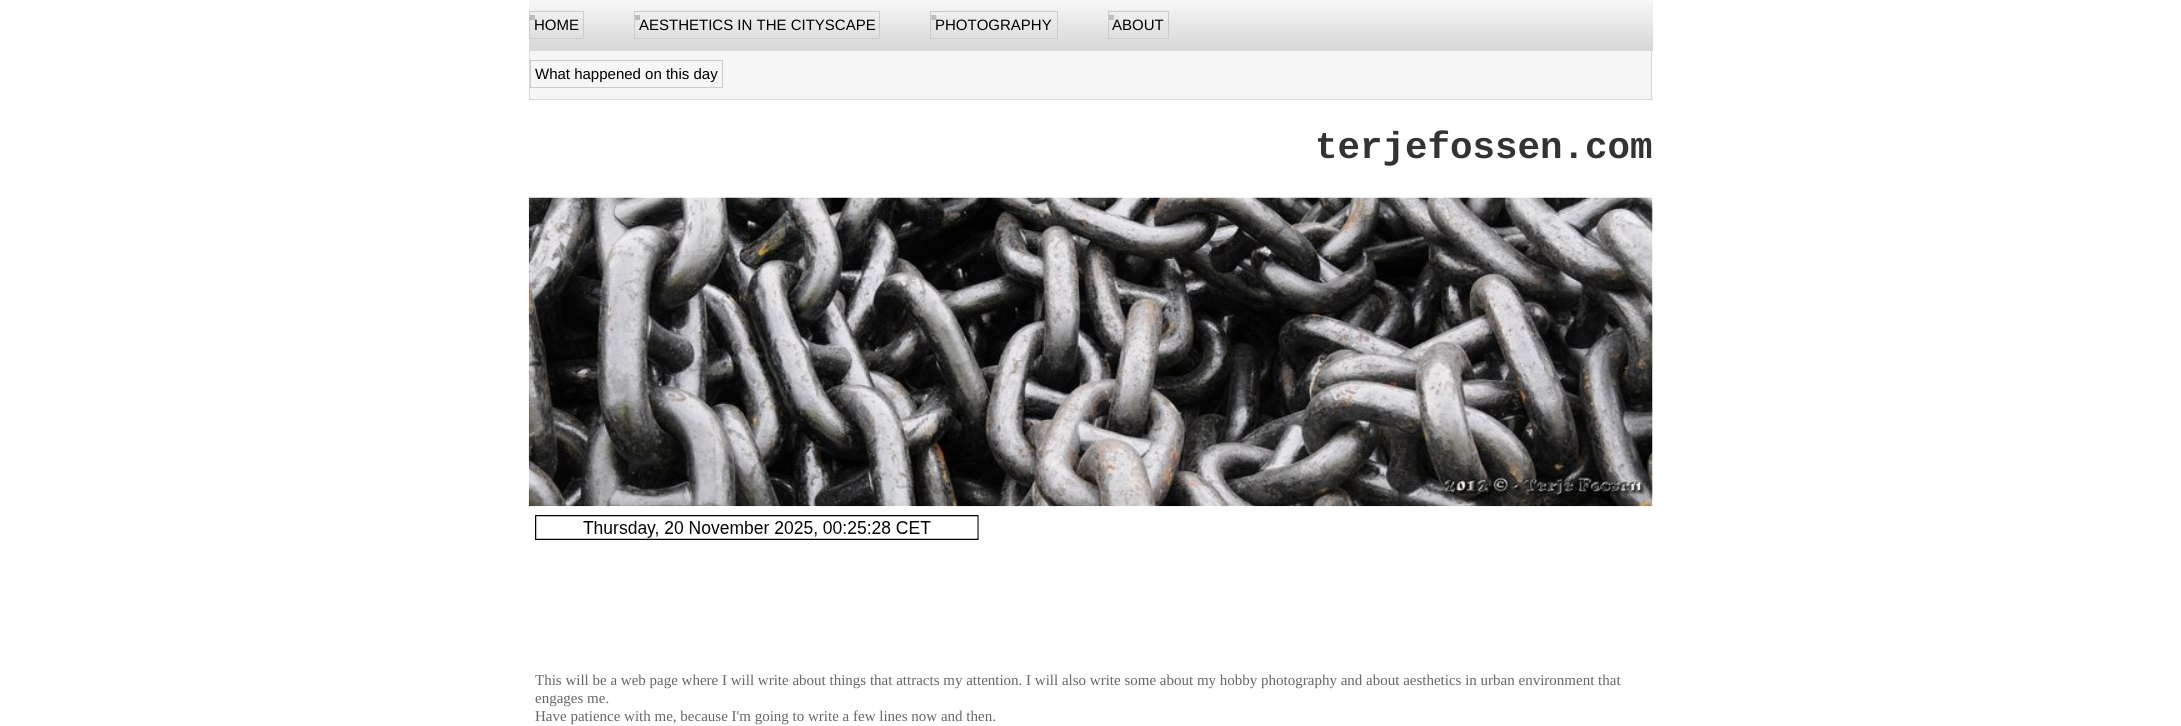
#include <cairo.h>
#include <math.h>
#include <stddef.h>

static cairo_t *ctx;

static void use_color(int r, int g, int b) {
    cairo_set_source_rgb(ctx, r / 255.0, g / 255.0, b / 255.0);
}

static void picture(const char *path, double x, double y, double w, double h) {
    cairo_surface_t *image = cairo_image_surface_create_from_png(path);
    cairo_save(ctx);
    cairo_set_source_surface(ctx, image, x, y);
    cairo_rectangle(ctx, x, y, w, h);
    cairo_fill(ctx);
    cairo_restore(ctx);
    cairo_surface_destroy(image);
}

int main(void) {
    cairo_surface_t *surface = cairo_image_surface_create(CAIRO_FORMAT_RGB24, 2181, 726);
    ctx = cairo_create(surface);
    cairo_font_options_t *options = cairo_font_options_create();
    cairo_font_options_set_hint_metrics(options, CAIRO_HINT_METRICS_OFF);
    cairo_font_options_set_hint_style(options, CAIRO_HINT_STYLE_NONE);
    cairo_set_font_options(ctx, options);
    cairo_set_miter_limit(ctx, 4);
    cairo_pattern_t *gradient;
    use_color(255, 255, 255);
    cairo_paint(ctx);
    gradient = cairo_pattern_create_linear(1091, 0, 1091, 51);
    cairo_pattern_add_color_stop_rgba(gradient, 0, 0.969, 0.969, 0.969, 1);
    cairo_pattern_add_color_stop_rgba(gradient, 1, 0.843, 0.843, 0.843, 1);
    cairo_set_source(ctx, gradient);
    cairo_pattern_destroy(gradient);
    cairo_rectangle(ctx, 529, 0, 1124, 51);
    cairo_fill(ctx);
    picture("img1.png", 530, 15, 5, 6);
    cairo_rectangle(ctx, 529.5, 11.5, 54, 27);
    use_color(204, 204, 204);
    cairo_set_line_width(ctx, 1);
    cairo_stroke(ctx);
    cairo_select_font_face(ctx, "Liberation Sans", CAIRO_FONT_SLANT_NORMAL, CAIRO_FONT_WEIGHT_NORMAL);
    cairo_set_font_size(ctx, 15);
    use_color(0, 0, 0);
    cairo_move_to(ctx, 534, 30);
    cairo_show_text(ctx, "HOME");
    picture("img1.png", 635, 15, 5, 6);
    cairo_rectangle(ctx, 634.5, 11.5, 245, 27);
    use_color(204, 204, 204);
    cairo_stroke(ctx);
    use_color(0, 0, 0);
    cairo_move_to(ctx, 639, 30);
    cairo_show_text(ctx, "AESTHETICS IN THE CITYSCAPE");
    picture("img2.png", 931, 15, 6, 6);
    cairo_rectangle(ctx, 930.5, 11.5, 127, 27);
    use_color(204, 204, 204);
    cairo_stroke(ctx);
    use_color(0, 0, 0);
    cairo_move_to(ctx, 935, 30);
    cairo_show_text(ctx, "PHOTOGRAPHY");
    picture("img3.png", 1109, 15, 5, 6);
    cairo_rectangle(ctx, 1108.5, 11.5, 60, 27);
    use_color(204, 204, 204);
    cairo_stroke(ctx);
    use_color(0, 0, 0);
    cairo_move_to(ctx, 1112, 30);
    cairo_show_text(ctx, "ABOUT");
    use_color(246, 246, 246);
    cairo_rectangle(ctx, 530, 51, 1121, 48);
    cairo_fill(ctx);
    use_color(215, 215, 215);
    cairo_rectangle(ctx, 1651, 51, 1, 49);
    cairo_fill(ctx);
    cairo_rectangle(ctx, 529, 99, 1124, 1);
    cairo_fill(ctx);
    cairo_rectangle(ctx, 529, 51, 1, 49);
    cairo_fill(ctx);
    cairo_rectangle(ctx, 530.5, 60.5, 192, 27);
    use_color(204, 204, 204);
    cairo_stroke(ctx);
    use_color(0, 0, 0);
    cairo_move_to(ctx, 535, 79);
    cairo_show_text(ctx, "What happened on this day");
    cairo_select_font_face(ctx, "Liberation Mono", CAIRO_FONT_SLANT_NORMAL, CAIRO_FONT_WEIGHT_BOLD);
    cairo_set_font_size(ctx, 37.5);
    use_color(51, 51, 51);
    cairo_move_to(ctx, 1315, 158);
    cairo_show_text(ctx, "terjefossen.com");
    picture("img4.png", 528, 197, 1125, 310);
    picture("img5.png", 535, 515, 444, 25);
    cairo_select_font_face(ctx, "Liberation Serif", CAIRO_FONT_SLANT_NORMAL, CAIRO_FONT_WEIGHT_NORMAL);
    cairo_set_font_size(ctx, 15);
    use_color(102, 102, 102);
    cairo_move_to(ctx, 535, 685);
    cairo_show_text(ctx, "This will be a web page where I will write about things that attracts my attention. I will also write some about my hobby photography and about aesthetics in urban environment that");
    cairo_move_to(ctx, 535, 703);
    cairo_show_text(ctx, "engages me.");
    cairo_move_to(ctx, 535, 721);
    cairo_show_text(ctx, "Have patience with me, because I'm going to write a few lines now and then.");
    cairo_surface_write_to_png(surface, "result.png");
    cairo_font_options_destroy(options);
    cairo_destroy(ctx);
    cairo_surface_destroy(surface);
    return 0;
}
